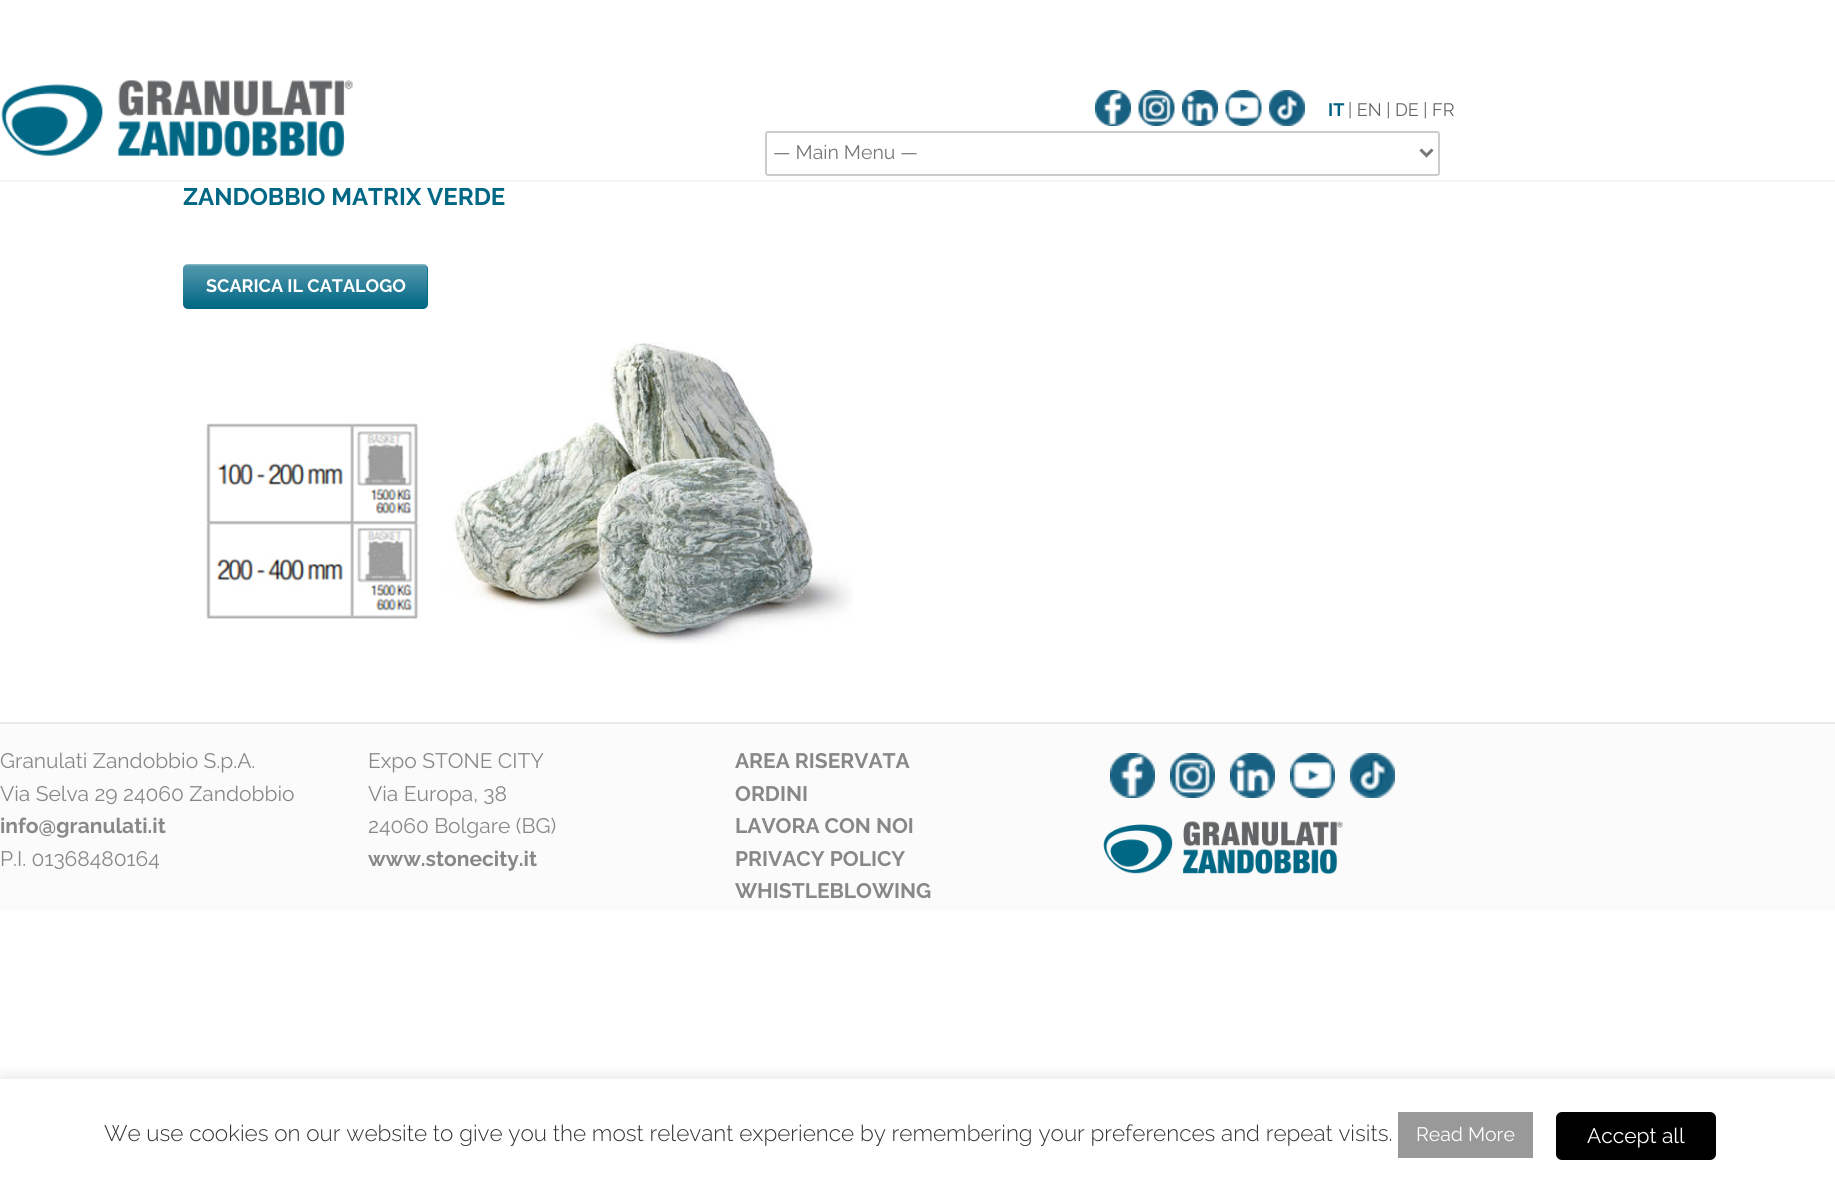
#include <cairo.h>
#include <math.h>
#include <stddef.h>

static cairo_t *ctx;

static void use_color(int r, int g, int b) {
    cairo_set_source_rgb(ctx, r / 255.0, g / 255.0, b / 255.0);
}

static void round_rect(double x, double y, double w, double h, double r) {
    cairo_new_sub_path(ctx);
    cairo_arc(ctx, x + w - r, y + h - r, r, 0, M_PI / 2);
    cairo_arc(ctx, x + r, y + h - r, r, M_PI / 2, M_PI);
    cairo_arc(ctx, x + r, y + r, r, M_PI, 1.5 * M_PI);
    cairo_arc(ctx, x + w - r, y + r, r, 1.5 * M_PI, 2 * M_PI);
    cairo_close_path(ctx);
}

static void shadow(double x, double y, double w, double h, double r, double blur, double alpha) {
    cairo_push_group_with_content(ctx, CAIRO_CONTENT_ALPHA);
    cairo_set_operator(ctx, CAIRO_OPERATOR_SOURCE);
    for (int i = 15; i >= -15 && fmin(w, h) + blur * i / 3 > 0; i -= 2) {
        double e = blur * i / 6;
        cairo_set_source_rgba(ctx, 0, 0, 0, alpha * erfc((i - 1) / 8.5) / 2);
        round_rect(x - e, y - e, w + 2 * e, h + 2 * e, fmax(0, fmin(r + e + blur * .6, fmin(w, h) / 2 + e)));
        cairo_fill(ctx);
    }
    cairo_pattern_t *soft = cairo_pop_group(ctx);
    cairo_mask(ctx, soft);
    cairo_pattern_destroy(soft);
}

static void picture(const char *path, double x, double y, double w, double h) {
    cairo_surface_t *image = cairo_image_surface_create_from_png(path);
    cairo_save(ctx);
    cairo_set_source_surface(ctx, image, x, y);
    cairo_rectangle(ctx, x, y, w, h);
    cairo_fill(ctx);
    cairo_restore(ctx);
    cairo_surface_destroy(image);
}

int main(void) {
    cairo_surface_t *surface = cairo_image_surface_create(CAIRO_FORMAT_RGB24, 1835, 1192);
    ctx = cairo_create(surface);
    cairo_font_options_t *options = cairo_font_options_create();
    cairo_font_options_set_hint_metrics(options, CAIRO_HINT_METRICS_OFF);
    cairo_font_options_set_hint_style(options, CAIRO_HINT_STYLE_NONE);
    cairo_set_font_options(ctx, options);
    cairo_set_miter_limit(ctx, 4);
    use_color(255, 255, 255);
    cairo_paint(ctx);
    use_color(243, 244, 245);
    cairo_rectangle(ctx, 0, 180, 1835, 2);
    cairo_fill(ctx);
    picture("img1.png", 1, 80, 352, 77);
    picture("img2.png", 1095, 90, 36, 36);
    picture("img3.png", 1138, 90, 37, 36);
    picture("img4.png", 1182, 90, 36, 36);
    picture("img5.png", 1225, 90, 37, 36);
    picture("img6.png", 1269, 90, 36, 36);
    cairo_select_font_face(ctx, "Raleway", CAIRO_FONT_SLANT_NORMAL, CAIRO_FONT_WEIGHT_BOLD);
    cairo_set_font_size(ctx, 18);
    use_color(0, 97, 130);
    cairo_move_to(ctx, 1328, 116);
    cairo_show_text(ctx, "IT");
    cairo_select_font_face(ctx, "Raleway", CAIRO_FONT_SLANT_NORMAL, CAIRO_FONT_WEIGHT_NORMAL);
    use_color(102, 102, 102);
    cairo_move_to(ctx, 1348, 116);
    cairo_show_text(ctx, "| EN | DE | FR");
    round_rect(766, 132, 673, 43, 2);
    use_color(204, 204, 204);
    cairo_stroke(ctx);
    cairo_new_path(ctx);
    cairo_move_to(ctx, 1420.5, 149.5);
    cairo_line_to(ctx, 1426.5, 155.5);
    cairo_line_to(ctx, 1432.5, 149.5);
    use_color(119, 119, 119);
    cairo_set_line_width(ctx, 3);
    cairo_stroke(ctx);
    cairo_set_font_size(ctx, 19.5);
    cairo_move_to(ctx, 773, 159);
    cairo_show_text(ctx, "— Main Menu —");
    cairo_select_font_face(ctx, "Raleway", CAIRO_FONT_SLANT_NORMAL, CAIRO_FONT_WEIGHT_BOLD);
    cairo_set_font_size(ctx, 24);
    use_color(0, 103, 133);
    cairo_move_to(ctx, 183, 205);
    cairo_show_text(ctx, "ZANDOBBIO MATRIX VERDE");
    round_rect(183, 264, 245, 45, 5);
    cairo_fill(ctx);
    picture("img7.png", 183, 264, 245, 42);
    cairo_set_font_size(ctx, 18);
    use_color(255, 255, 255);
    cairo_move_to(ctx, 206, 292);
    cairo_show_text(ctx, "SCARICA IL CATALOGO");
    picture("img8.png", 206, 343, 647, 301);
    use_color(251, 251, 251);
    cairo_rectangle(ctx, 0, 724, 1835, 187);
    cairo_fill(ctx);
    use_color(234, 234, 234);
    cairo_rectangle(ctx, 0, 722, 1835, 2);
    cairo_fill(ctx);
    cairo_select_font_face(ctx, "Raleway", CAIRO_FONT_SLANT_NORMAL, CAIRO_FONT_WEIGHT_NORMAL);
    cairo_set_font_size(ctx, 21);
    use_color(136, 136, 136);
    cairo_move_to(ctx, 0, 768);
    cairo_show_text(ctx, "Granulati Zandobbio S.p.A.");
    cairo_move_to(ctx, 0, 801);
    cairo_show_text(ctx, "Via Selva 29 24060 Zandobbio");
    cairo_select_font_face(ctx, "Raleway", CAIRO_FONT_SLANT_NORMAL, CAIRO_FONT_WEIGHT_BOLD);
    cairo_move_to(ctx, 0, 833);
    cairo_show_text(ctx, "info@granulati.it");
    cairo_select_font_face(ctx, "Raleway", CAIRO_FONT_SLANT_NORMAL, CAIRO_FONT_WEIGHT_NORMAL);
    cairo_move_to(ctx, 0, 866);
    cairo_show_text(ctx, "P.I. 01368480164");
    cairo_move_to(ctx, 368, 768);
    cairo_show_text(ctx, "Expo STONE CITY");
    cairo_move_to(ctx, 368, 801);
    cairo_show_text(ctx, "Via Europa, 38");
    cairo_move_to(ctx, 368, 833);
    cairo_show_text(ctx, "24060 Bolgare (BG)");
    cairo_select_font_face(ctx, "Raleway", CAIRO_FONT_SLANT_NORMAL, CAIRO_FONT_WEIGHT_BOLD);
    cairo_move_to(ctx, 368, 866);
    cairo_show_text(ctx, "www.stonecity.it");
    cairo_move_to(ctx, 735, 768);
    cairo_show_text(ctx, "AREA RISERVATA");
    cairo_move_to(ctx, 735, 801);
    cairo_show_text(ctx, "ORDINI");
    cairo_move_to(ctx, 735, 833);
    cairo_show_text(ctx, "LAVORA CON NOI");
    cairo_move_to(ctx, 735, 866);
    cairo_show_text(ctx, "PRIVACY POLICY");
    cairo_move_to(ctx, 735, 898);
    cairo_show_text(ctx, "WHISTLEBLOWING");
    picture("img9.png", 1110, 753, 45, 45);
    picture("img10.png", 1170, 753, 45, 45);
    picture("img11.png", 1230, 753, 45, 45);
    picture("img12.png", 1290, 753, 45, 45);
    picture("img13.png", 1350, 753, 45, 45);
    picture("img14.png", 1103, 821, 240, 53);
    cairo_save(ctx);
    cairo_rectangle(ctx, 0, 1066, 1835, 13);
    cairo_clip(ctx);
    use_color(172, 171, 171);
    shadow(0, 1077, 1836, 114, 0, 7.5, 0.3);
    cairo_restore(ctx);
    cairo_select_font_face(ctx, "Raleway Light", CAIRO_FONT_SLANT_NORMAL, CAIRO_FONT_WEIGHT_NORMAL);
    cairo_set_font_size(ctx, 22.5);
    use_color(51, 51, 51);
    cairo_move_to(ctx, 104, 1141);
    cairo_show_text(ctx, "We use cookies on our website to give you the most relevant experience by remembering your preferences and repeat visits.");
    use_color(153, 153, 153);
    cairo_rectangle(ctx, 1398, 1112, 135, 46);
    cairo_fill(ctx);
    cairo_select_font_face(ctx, "Raleway", CAIRO_FONT_SLANT_NORMAL, CAIRO_FONT_WEIGHT_NORMAL);
    cairo_set_font_size(ctx, 19.5);
    use_color(255, 255, 255);
    cairo_move_to(ctx, 1416, 1141);
    cairo_show_text(ctx, "Read More");
    use_color(0, 0, 0);
    round_rect(1556, 1112, 160, 48, 6);
    cairo_fill(ctx);
    cairo_set_font_size(ctx, 21);
    use_color(255, 255, 255);
    cairo_move_to(ctx, 1587, 1143);
    cairo_show_text(ctx, "Accept all");
    cairo_surface_write_to_png(surface, "result.png");
    cairo_font_options_destroy(options);
    cairo_destroy(ctx);
    cairo_surface_destroy(surface);
    return 0;
}
